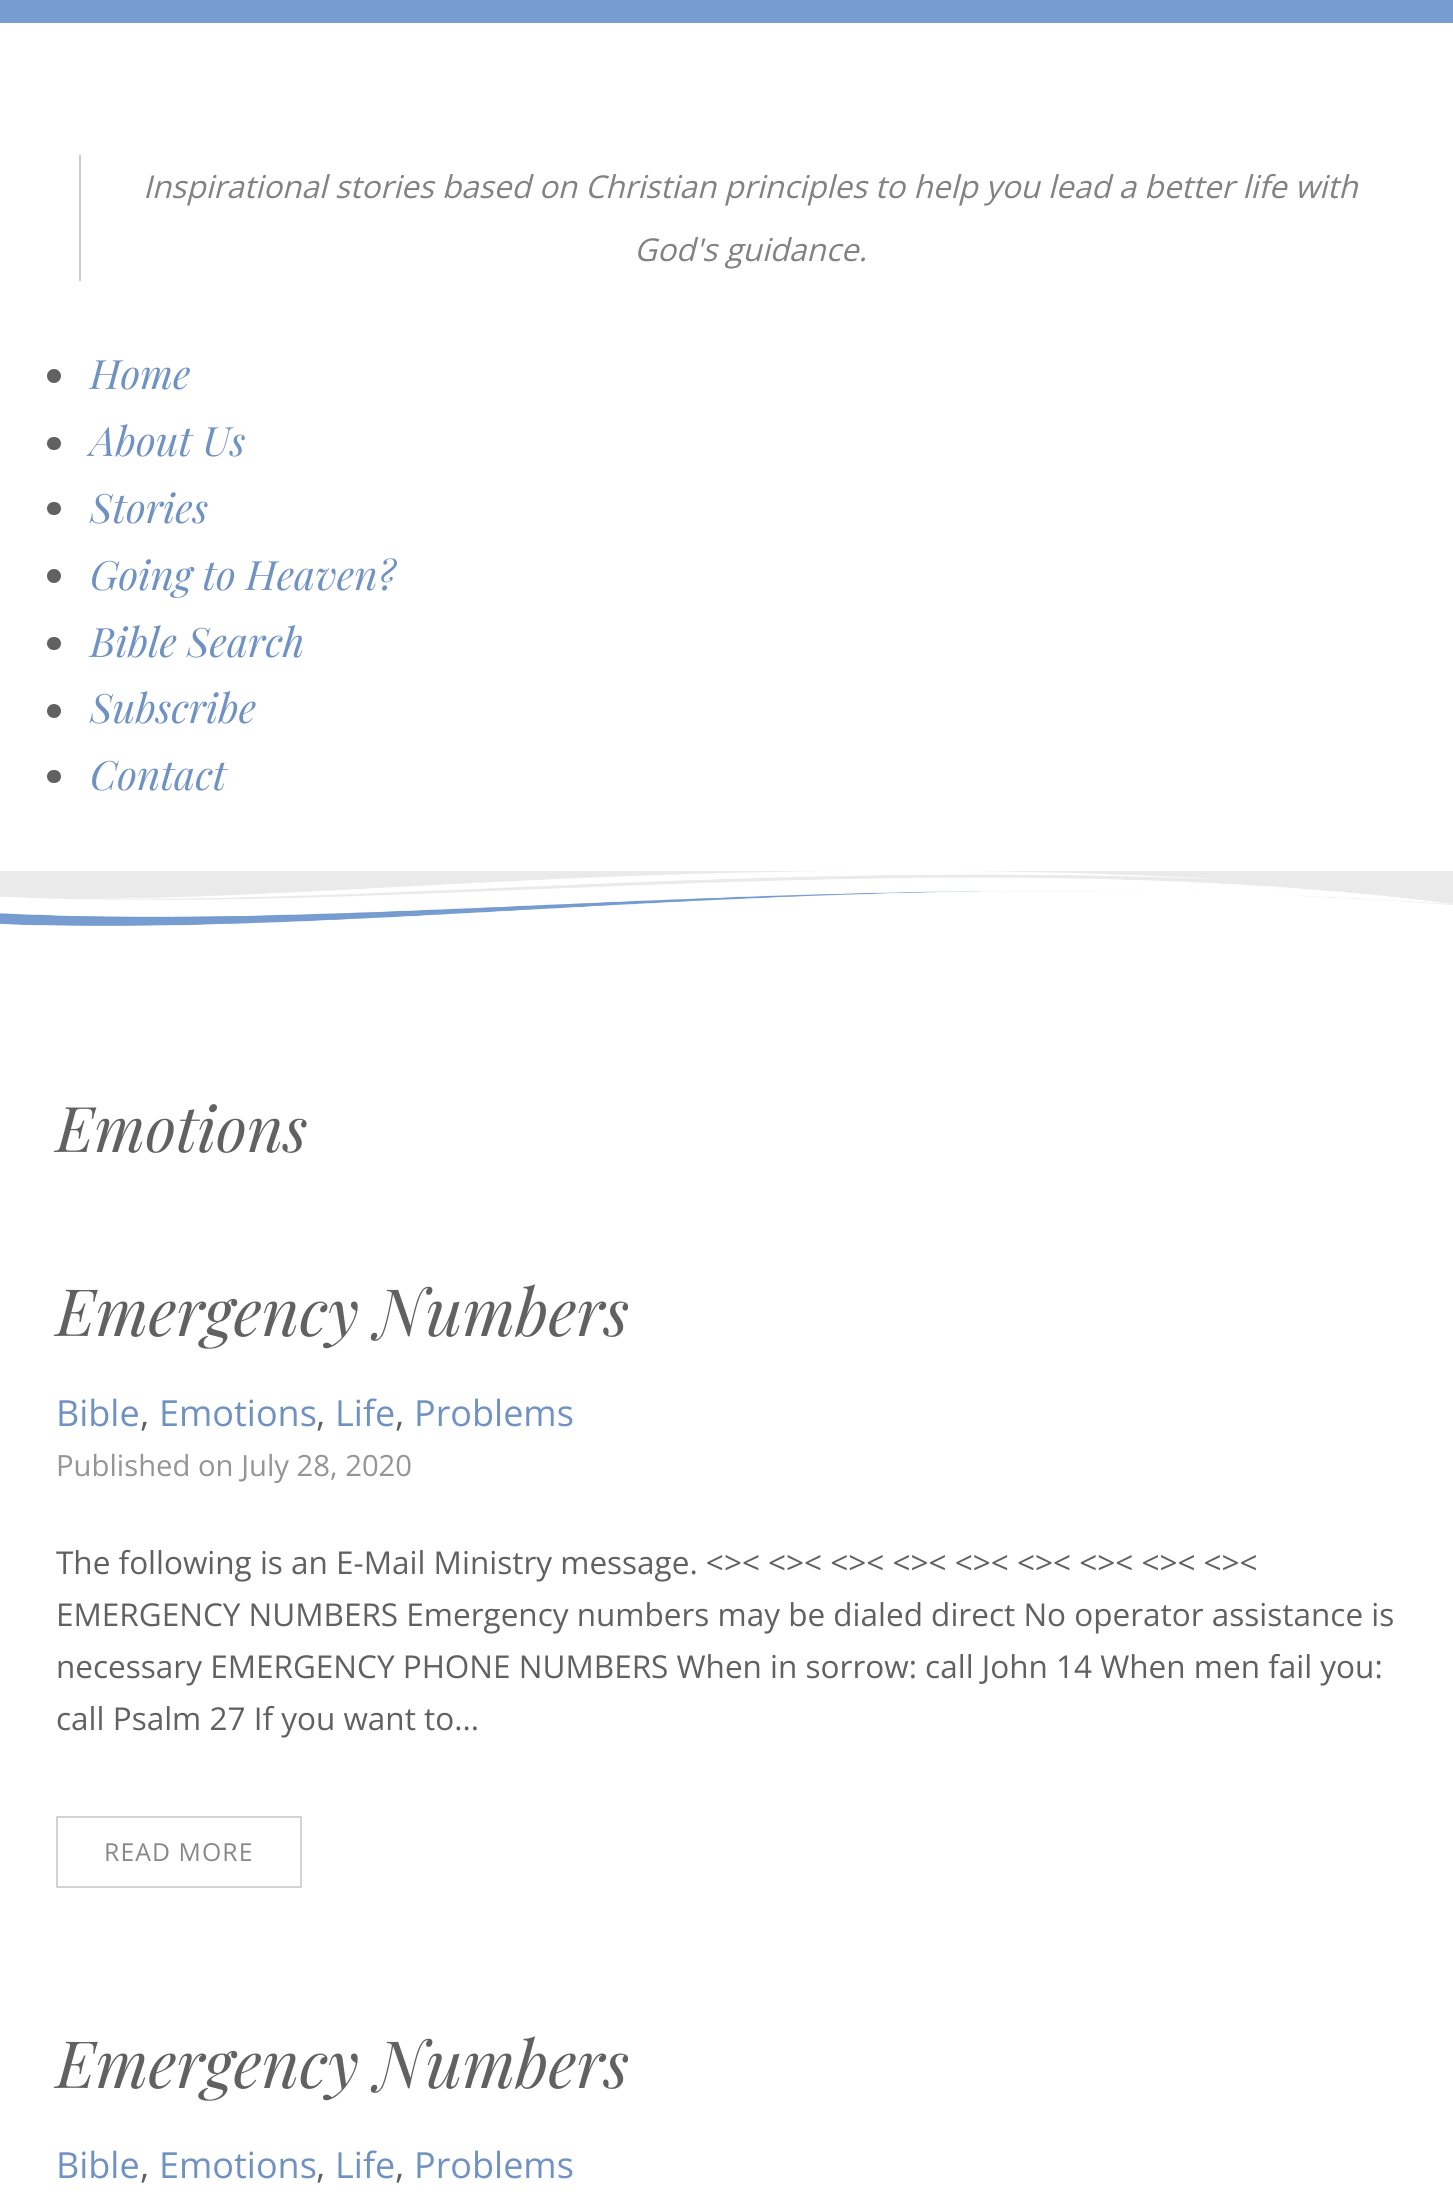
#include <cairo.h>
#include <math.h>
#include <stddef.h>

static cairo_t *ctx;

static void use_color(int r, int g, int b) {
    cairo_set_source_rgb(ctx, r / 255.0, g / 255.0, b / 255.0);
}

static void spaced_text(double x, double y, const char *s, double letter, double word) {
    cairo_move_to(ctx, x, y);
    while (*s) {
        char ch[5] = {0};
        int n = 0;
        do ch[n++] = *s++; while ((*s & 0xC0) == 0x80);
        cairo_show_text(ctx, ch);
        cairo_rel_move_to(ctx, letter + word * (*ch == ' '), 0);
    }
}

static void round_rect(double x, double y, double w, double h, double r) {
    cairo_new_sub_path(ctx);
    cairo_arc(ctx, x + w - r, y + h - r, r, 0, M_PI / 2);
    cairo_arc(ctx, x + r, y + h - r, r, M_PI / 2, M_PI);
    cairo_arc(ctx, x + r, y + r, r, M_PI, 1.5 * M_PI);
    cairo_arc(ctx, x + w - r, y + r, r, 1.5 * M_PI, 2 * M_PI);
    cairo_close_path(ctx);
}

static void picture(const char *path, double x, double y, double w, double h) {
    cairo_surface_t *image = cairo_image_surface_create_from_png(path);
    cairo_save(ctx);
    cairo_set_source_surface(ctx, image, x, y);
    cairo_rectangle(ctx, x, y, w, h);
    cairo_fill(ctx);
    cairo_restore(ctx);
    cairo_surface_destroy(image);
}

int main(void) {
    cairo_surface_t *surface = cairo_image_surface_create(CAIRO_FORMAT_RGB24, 1453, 2199);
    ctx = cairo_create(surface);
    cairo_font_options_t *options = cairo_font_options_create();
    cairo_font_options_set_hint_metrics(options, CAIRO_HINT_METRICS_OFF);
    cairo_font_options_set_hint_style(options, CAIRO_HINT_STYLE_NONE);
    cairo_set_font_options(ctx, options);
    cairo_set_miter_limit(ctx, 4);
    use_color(118, 156, 208);
    cairo_paint(ctx);
    use_color(255, 255, 255);
    cairo_rectangle(ctx, 0, 23, 1453, 848);
    cairo_fill(ctx);
    use_color(204, 204, 204);
    cairo_rectangle(ctx, 79, 155, 2, 126);
    cairo_fill(ctx);
    cairo_select_font_face(ctx, "Open Sans", CAIRO_FONT_SLANT_ITALIC, CAIRO_FONT_WEIGHT_NORMAL);
    cairo_set_font_size(ctx, 31.5);
    use_color(130, 130, 130);
    cairo_move_to(ctx, 143, 198);
    cairo_show_text(ctx, "Inspirational stories based on Christian principles to help you lead a better life with");
    cairo_move_to(ctx, 634, 261);
    cairo_show_text(ctx, "God's guidance.");
    use_color(97, 97, 97);
    cairo_new_path(ctx);
    cairo_arc(ctx, 54, 376, 7, 0, 2 * M_PI);
    cairo_fill(ctx);
    cairo_select_font_face(ctx, "Playfair Display", CAIRO_FONT_SLANT_ITALIC, CAIRO_FONT_WEIGHT_NORMAL);
    cairo_set_font_size(ctx, 40.5);
    use_color(111, 146, 195);
    cairo_move_to(ctx, 90, 389);
    cairo_show_text(ctx, "Home");
    use_color(97, 97, 97);
    round_rect(47, 437, 14, 13, 6.5);
    cairo_fill(ctx);
    use_color(111, 146, 195);
    cairo_move_to(ctx, 90, 456);
    cairo_show_text(ctx, "About Us");
    use_color(97, 97, 97);
    round_rect(47, 502, 14, 13, 6.5);
    cairo_fill(ctx);
    use_color(111, 146, 195);
    cairo_move_to(ctx, 90, 523);
    cairo_show_text(ctx, "Stories");
    use_color(97, 97, 97);
    cairo_new_path(ctx);
    cairo_arc(ctx, 54, 576, 7, 0, 2 * M_PI);
    cairo_fill(ctx);
    use_color(111, 146, 195);
    cairo_move_to(ctx, 90, 590);
    cairo_show_text(ctx, "Going to Heaven?");
    use_color(97, 97, 97);
    round_rect(47, 637, 14, 13, 6.5);
    cairo_fill(ctx);
    use_color(111, 146, 195);
    cairo_move_to(ctx, 90, 657);
    cairo_show_text(ctx, "Bible Search");
    use_color(97, 97, 97);
    cairo_new_path(ctx);
    cairo_arc(ctx, 54, 711, 7, 0, 2 * M_PI);
    cairo_fill(ctx);
    use_color(111, 146, 195);
    cairo_move_to(ctx, 90, 723);
    cairo_show_text(ctx, "Subscribe");
    use_color(97, 97, 97);
    round_rect(47, 770, 14, 13, 6.5);
    cairo_fill(ctx);
    use_color(111, 146, 195);
    cairo_move_to(ctx, 90, 790);
    cairo_show_text(ctx, "Contact");
    use_color(234, 234, 234);
    cairo_rectangle(ctx, 0, 871, 1453, 35);
    cairo_fill(ctx);
    picture("img1.png", 0, 871, 1453, 55);
    use_color(255, 255, 255);
    cairo_rectangle(ctx, 0, 926, 1453, 1273);
    cairo_fill(ctx);
    cairo_set_font_size(ctx, 63);
    use_color(97, 97, 97);
    cairo_move_to(ctx, 56, 1152);
    cairo_show_text(ctx, "Emotions");
    cairo_set_font_size(ctx, 65.25);
    cairo_move_to(ctx, 56, 1336);
    cairo_show_text(ctx, "Emergency Numbers");
    cairo_select_font_face(ctx, "Open Sans", CAIRO_FONT_SLANT_NORMAL, CAIRO_FONT_WEIGHT_NORMAL);
    cairo_set_font_size(ctx, 36);
    use_color(111, 146, 195);
    cairo_move_to(ctx, 56, 1426);
    cairo_show_text(ctx, "Bible");
    use_color(97, 97, 97);
    cairo_move_to(ctx, 140, 1426);
    cairo_show_text(ctx, ",");
    use_color(111, 146, 195);
    cairo_move_to(ctx, 159, 1426);
    cairo_show_text(ctx, "Emotions");
    use_color(97, 97, 97);
    cairo_move_to(ctx, 316, 1426);
    cairo_show_text(ctx, ",");
    use_color(111, 146, 195);
    cairo_move_to(ctx, 335, 1426);
    cairo_show_text(ctx, "Life");
    use_color(97, 97, 97);
    cairo_move_to(ctx, 395, 1426);
    cairo_show_text(ctx, ",");
    use_color(111, 146, 195);
    cairo_move_to(ctx, 414, 1426);
    cairo_show_text(ctx, "Problems");
    cairo_set_font_size(ctx, 29.25);
    use_color(149, 149, 149);
    cairo_move_to(ctx, 56, 1476);
    cairo_show_text(ctx, "Published on July 28, 2020");
    cairo_set_font_size(ctx, 31.5);
    use_color(97, 97, 97);
    cairo_move_to(ctx, 56, 1574);
    cairo_show_text(ctx, "The following is an E-Mail Ministry message. <>< <>< <>< <>< <>< <>< <>< <>< <><");
    cairo_move_to(ctx, 56, 1626);
    cairo_show_text(ctx, "EMERGENCY NUMBERS Emergency numbers may be dialed direct No operator assistance is");
    cairo_move_to(ctx, 56, 1678);
    cairo_show_text(ctx, "necessary EMERGENCY PHONE NUMBERS When in sorrow: call John 14 When men fail you:");
    cairo_move_to(ctx, 56, 1730);
    cairo_show_text(ctx, "call Psalm 27 If you want to...");
    cairo_rectangle(ctx, 57, 1817, 244, 70);
    use_color(211, 211, 211);
    cairo_stroke(ctx);
    cairo_set_font_size(ctx, 24.75);
    use_color(136, 136, 136);
    spaced_text(104, 1861, "READ MORE", 1.1, 0);
    cairo_select_font_face(ctx, "Playfair Display", CAIRO_FONT_SLANT_ITALIC, CAIRO_FONT_WEIGHT_NORMAL);
    cairo_set_font_size(ctx, 65.25);
    use_color(97, 97, 97);
    cairo_move_to(ctx, 56, 2088);
    cairo_show_text(ctx, "Emergency Numbers");
    cairo_select_font_face(ctx, "Open Sans", CAIRO_FONT_SLANT_NORMAL, CAIRO_FONT_WEIGHT_NORMAL);
    cairo_set_font_size(ctx, 36);
    use_color(111, 146, 195);
    cairo_move_to(ctx, 56, 2178);
    cairo_show_text(ctx, "Bible");
    use_color(97, 97, 97);
    cairo_move_to(ctx, 140, 2178);
    cairo_show_text(ctx, ",");
    use_color(111, 146, 195);
    cairo_move_to(ctx, 159, 2178);
    cairo_show_text(ctx, "Emotions");
    use_color(97, 97, 97);
    cairo_move_to(ctx, 316, 2178);
    cairo_show_text(ctx, ",");
    use_color(111, 146, 195);
    cairo_move_to(ctx, 335, 2178);
    cairo_show_text(ctx, "Life");
    use_color(97, 97, 97);
    cairo_move_to(ctx, 395, 2178);
    cairo_show_text(ctx, ",");
    use_color(111, 146, 195);
    cairo_move_to(ctx, 414, 2178);
    cairo_show_text(ctx, "Problems");
    cairo_surface_write_to_png(surface, "result.png");
    cairo_font_options_destroy(options);
    cairo_destroy(ctx);
    cairo_surface_destroy(surface);
    return 0;
}
